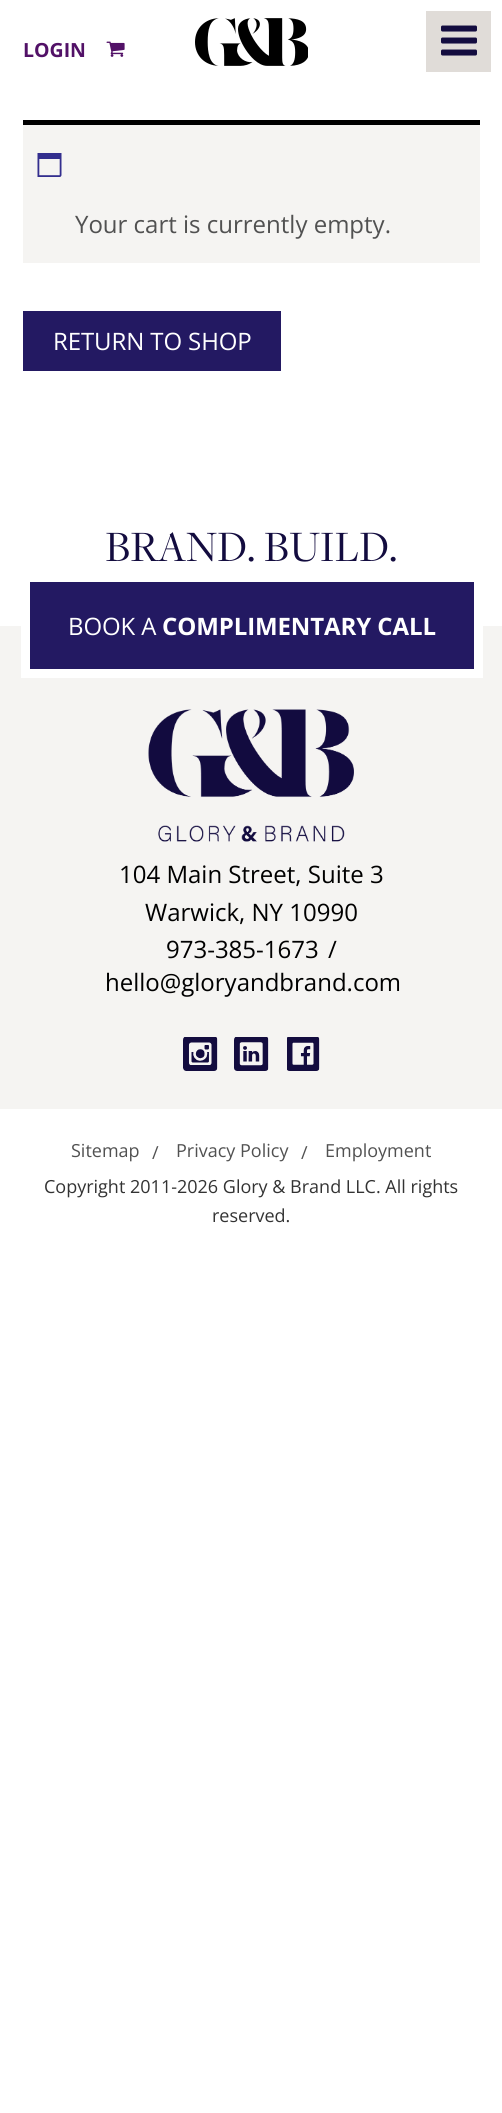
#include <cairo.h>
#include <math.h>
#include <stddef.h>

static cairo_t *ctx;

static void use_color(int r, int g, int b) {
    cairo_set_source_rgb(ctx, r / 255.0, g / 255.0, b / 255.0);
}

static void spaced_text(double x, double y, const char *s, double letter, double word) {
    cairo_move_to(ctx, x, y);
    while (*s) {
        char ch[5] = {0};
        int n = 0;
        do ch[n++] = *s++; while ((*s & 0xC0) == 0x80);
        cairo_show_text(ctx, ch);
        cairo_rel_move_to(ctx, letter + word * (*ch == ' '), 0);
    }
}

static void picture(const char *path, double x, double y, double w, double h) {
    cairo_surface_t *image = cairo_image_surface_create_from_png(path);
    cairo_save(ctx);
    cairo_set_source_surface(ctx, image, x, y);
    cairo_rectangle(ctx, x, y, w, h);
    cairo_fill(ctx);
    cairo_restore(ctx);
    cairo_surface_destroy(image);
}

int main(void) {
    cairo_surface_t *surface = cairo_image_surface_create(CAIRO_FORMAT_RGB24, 502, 2113);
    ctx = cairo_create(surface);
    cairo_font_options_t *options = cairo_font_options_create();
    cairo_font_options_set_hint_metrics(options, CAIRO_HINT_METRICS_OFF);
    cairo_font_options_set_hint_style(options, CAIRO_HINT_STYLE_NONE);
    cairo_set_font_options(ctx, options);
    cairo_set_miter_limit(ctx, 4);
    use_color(255, 255, 255);
    cairo_paint(ctx);
    cairo_select_font_face(ctx, "Open Sans", CAIRO_FONT_SLANT_NORMAL, CAIRO_FONT_WEIGHT_BOLD);
    cairo_set_font_size(ctx, 19.5);
    use_color(82, 17, 103);
    cairo_move_to(ctx, 23, 57);
    cairo_show_text(ctx, "LOGIN");
    picture("img1.png", 106, 41, 19, 16);
    picture("img2.png", 195, 18, 113, 48);
    use_color(224, 220, 216);
    cairo_rectangle(ctx, 426, 11, 65, 61);
    cairo_fill(ctx);
    picture("img3.png", 441, 25, 36, 31);
    use_color(245, 244, 242);
    cairo_rectangle(ctx, 23, 125, 457, 138);
    cairo_fill(ctx);
    use_color(0, 0, 0);
    cairo_rectangle(ctx, 23, 120, 457, 5);
    cairo_fill(ctx);
    picture("img4.png", 37, 153, 25, 24);
    cairo_select_font_face(ctx, "Open Sans", CAIRO_FONT_SLANT_NORMAL, CAIRO_FONT_WEIGHT_NORMAL);
    cairo_set_font_size(ctx, 24);
    use_color(81, 81, 81);
    cairo_move_to(ctx, 75, 233);
    cairo_show_text(ctx, "Your cart is currently empty.");
    use_color(35, 25, 98);
    cairo_rectangle(ctx, 23, 311, 258, 60);
    cairo_fill(ctx);
    use_color(255, 255, 255);
    spaced_text(53, 350, "RETURN TO SHOP", -0.1, 0);
    cairo_select_font_face(ctx, "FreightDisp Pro", CAIRO_FONT_SLANT_NORMAL, CAIRO_FONT_WEIGHT_NORMAL);
    cairo_set_font_size(ctx, 45);
    use_color(19, 12, 63);
    cairo_move_to(ctx, 105, 561);
    cairo_show_text(ctx, "BRAND. BUILD.");
    use_color(245, 244, 242);
    cairo_rectangle(ctx, 0, 626, 502, 483);
    cairo_fill(ctx);
    use_color(35, 25, 98);
    cairo_rectangle(ctx, 25.5, 577.5, 453, 96);
    cairo_fill_preserve(ctx);
    use_color(255, 255, 255);
    cairo_set_line_width(ctx, 9);
    cairo_stroke(ctx);
    cairo_select_font_face(ctx, "Open Sans", CAIRO_FONT_SLANT_NORMAL, CAIRO_FONT_WEIGHT_NORMAL);
    cairo_set_font_size(ctx, 24);
    spaced_text(68, 635, "BOOK A", -0.1, 0);
    cairo_select_font_face(ctx, "Open Sans", CAIRO_FONT_SLANT_NORMAL, CAIRO_FONT_WEIGHT_BOLD);
    spaced_text(162, 635, "COMPLIMENTARY CALL", -0.1, 0);
    picture("img5.png", 148, 709, 206, 133);
    cairo_select_font_face(ctx, "Open Sans", CAIRO_FONT_SLANT_NORMAL, CAIRO_FONT_WEIGHT_NORMAL);
    use_color(0, 0, 0);
    cairo_move_to(ctx, 119, 883);
    cairo_show_text(ctx, "104 Main Street, Suite 3");
    cairo_move_to(ctx, 145, 921);
    cairo_show_text(ctx, "Warwick, NY 10990");
    cairo_move_to(ctx, 166, 958);
    cairo_show_text(ctx, "973-385-1673");
    cairo_move_to(ctx, 328, 958);
    cairo_show_text(ctx, "/");
    cairo_move_to(ctx, 105, 991);
    cairo_show_text(ctx, "hello@gloryandbrand.com");
    picture("img6.png", 183, 1037, 35, 34);
    picture("img7.png", 234, 1037, 35, 34);
    picture("img8.png", 287, 1037, 33, 34);
    cairo_set_font_size(ctx, 18);
    use_color(81, 81, 81);
    cairo_move_to(ctx, 71, 1157);
    cairo_show_text(ctx, "Sitemap");
    cairo_move_to(ctx, 152, 1159);
    cairo_show_text(ctx, "/");
    cairo_move_to(ctx, 176, 1157);
    cairo_show_text(ctx, "Privacy Policy");
    cairo_move_to(ctx, 301, 1159);
    cairo_show_text(ctx, "/");
    cairo_move_to(ctx, 325, 1157);
    cairo_show_text(ctx, "Employment");
    use_color(51, 51, 51);
    cairo_move_to(ctx, 44, 1193);
    cairo_show_text(ctx, "Copyright 2011-2026 Glory & Brand LLC. All rights");
    cairo_move_to(ctx, 212, 1222);
    cairo_show_text(ctx, "reserved.");
    cairo_surface_write_to_png(surface, "result.png");
    cairo_font_options_destroy(options);
    cairo_destroy(ctx);
    cairo_surface_destroy(surface);
    return 0;
}
